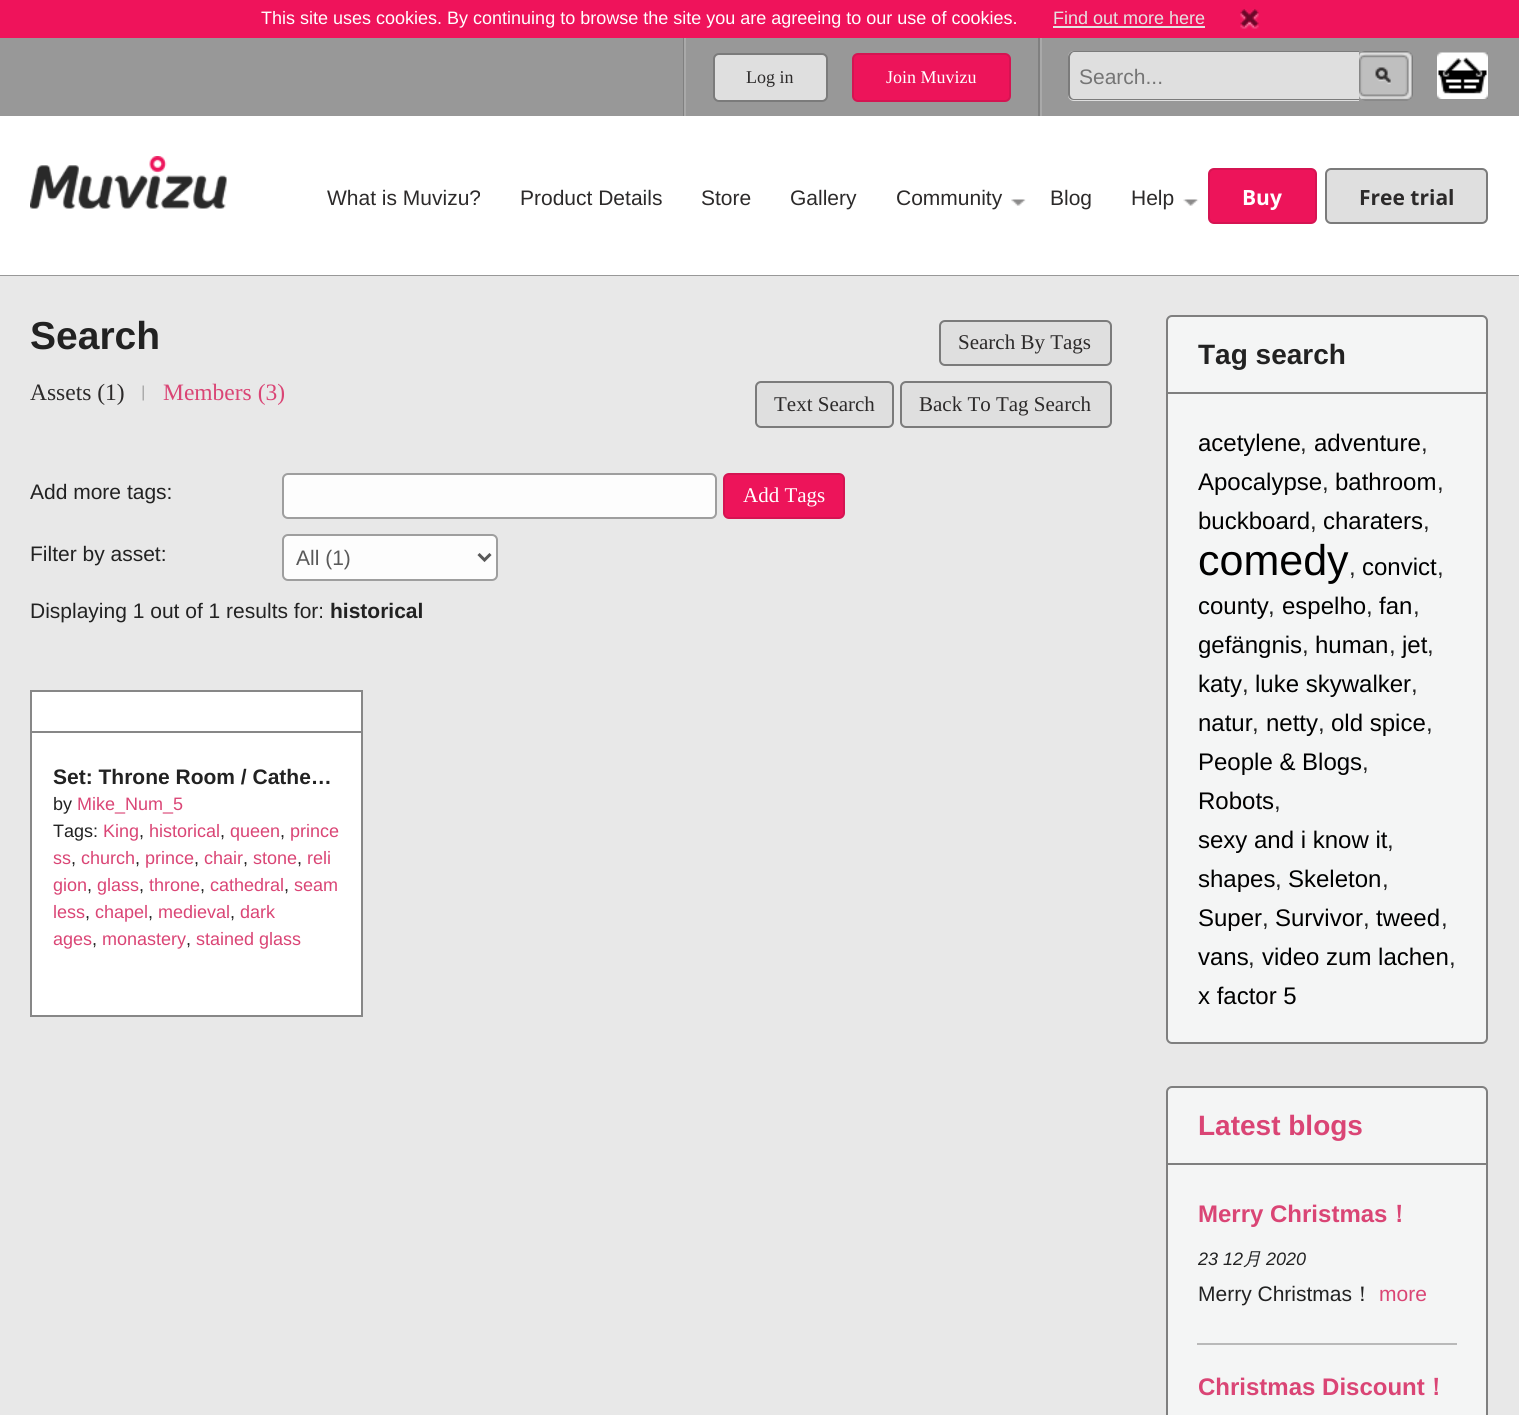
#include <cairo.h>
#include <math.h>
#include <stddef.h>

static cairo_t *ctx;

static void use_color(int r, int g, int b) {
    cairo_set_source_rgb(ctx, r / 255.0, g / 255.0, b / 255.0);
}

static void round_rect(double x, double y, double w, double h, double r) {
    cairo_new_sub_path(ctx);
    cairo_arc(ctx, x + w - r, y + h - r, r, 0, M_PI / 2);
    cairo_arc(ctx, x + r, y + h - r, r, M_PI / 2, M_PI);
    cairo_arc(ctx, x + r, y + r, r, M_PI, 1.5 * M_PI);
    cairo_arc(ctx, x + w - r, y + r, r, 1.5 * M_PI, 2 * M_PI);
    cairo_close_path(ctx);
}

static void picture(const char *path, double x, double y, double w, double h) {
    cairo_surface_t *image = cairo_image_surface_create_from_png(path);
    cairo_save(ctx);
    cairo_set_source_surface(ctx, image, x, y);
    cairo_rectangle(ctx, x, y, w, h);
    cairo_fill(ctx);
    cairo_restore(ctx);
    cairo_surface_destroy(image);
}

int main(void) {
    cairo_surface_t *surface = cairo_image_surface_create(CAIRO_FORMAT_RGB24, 1519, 1415);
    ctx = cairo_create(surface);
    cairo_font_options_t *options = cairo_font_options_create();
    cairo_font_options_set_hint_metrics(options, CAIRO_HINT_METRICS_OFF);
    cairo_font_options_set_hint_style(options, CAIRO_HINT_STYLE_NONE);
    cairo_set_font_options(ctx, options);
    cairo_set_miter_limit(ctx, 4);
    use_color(255, 255, 255);
    cairo_paint(ctx);
    use_color(239, 19, 91);
    cairo_rectangle(ctx, 0, 0, 1519, 38);
    cairo_fill(ctx);
    cairo_select_font_face(ctx, "Liberation Sans", CAIRO_FONT_SLANT_NORMAL, CAIRO_FONT_WEIGHT_NORMAL);
    cairo_set_font_size(ctx, 18);
    use_color(255, 255, 255);
    cairo_move_to(ctx, 261, 24);
    cairo_show_text(ctx, "This site uses cookies. By continuing to browse the site you are agreeing to our use of cookies.");
    use_color(229, 227, 227);
    cairo_move_to(ctx, 1053, 24);
    cairo_show_text(ctx, "Find out more here");
    cairo_rectangle(ctx, 1053, 26, 152, 2);
    cairo_fill(ctx);
    picture("img1.png", 1240, 9, 19, 20);
    use_color(152, 152, 152);
    cairo_rectangle(ctx, 0, 38, 1519, 78);
    cairo_fill(ctx);
    use_color(169, 169, 169);
    cairo_rectangle(ctx, 1040, 38, 2, 78);
    cairo_fill(ctx);
    use_color(128, 128, 128);
    cairo_rectangle(ctx, 683, 38, 1, 78);
    cairo_fill(ctx);
    use_color(169, 169, 169);
    cairo_rectangle(ctx, 684, 38, 2, 78);
    cairo_fill(ctx);
    use_color(223, 223, 223);
    round_rect(714, 54, 113, 47, 5);
    cairo_fill_preserve(ctx);
    use_color(123, 123, 123);
    cairo_stroke(ctx);
    cairo_select_font_face(ctx, "Liberation Serif", CAIRO_FONT_SLANT_NORMAL, CAIRO_FONT_WEIGHT_NORMAL);
    use_color(44, 42, 42);
    cairo_move_to(ctx, 746, 83);
    cairo_show_text(ctx, "Log in");
    use_color(128, 128, 128);
    cairo_rectangle(ctx, 1038, 38, 2, 78);
    cairo_fill(ctx);
    use_color(237, 20, 90);
    round_rect(853, 54, 157, 47, 5);
    cairo_fill_preserve(ctx);
    use_color(213, 20, 82);
    cairo_stroke(ctx);
    use_color(255, 255, 255);
    cairo_move_to(ctx, 886, 83);
    cairo_show_text(ctx, "Join Muvizu");
    use_color(223, 223, 223);
    cairo_new_path(ctx);
    cairo_move_to(ctx, 1074, 51);
    cairo_line_to(ctx, 1359, 51);
    cairo_line_to(ctx, 1359, 101);
    cairo_line_to(ctx, 1074, 101);
    cairo_curve_to(ctx, 1070.5, 101, 1068, 98.5, 1068, 95);
    cairo_line_to(ctx, 1068, 57);
    cairo_curve_to(ctx, 1068, 53.5, 1070.5, 51, 1074, 51);
    cairo_close_path(ctx);
    cairo_fill(ctx);
    use_color(123, 123, 123);
    cairo_set_fill_rule(ctx, CAIRO_FILL_RULE_EVEN_ODD);
    cairo_new_path(ctx);
    cairo_move_to(ctx, 1074, 51);
    cairo_line_to(ctx, 1359, 51);
    cairo_line_to(ctx, 1359, 100);
    cairo_line_to(ctx, 1074, 100);
    cairo_curve_to(ctx, 1071, 100, 1068, 98, 1068, 94);
    cairo_line_to(ctx, 1068, 57);
    cairo_curve_to(ctx, 1068, 54, 1071, 51, 1074, 51);
    cairo_close_path(ctx);
    cairo_move_to(ctx, 1074, 52);
    cairo_line_to(ctx, 1359, 52);
    cairo_line_to(ctx, 1359, 99);
    cairo_line_to(ctx, 1074, 99);
    cairo_curve_to(ctx, 1072, 99, 1070, 97, 1070, 94);
    cairo_line_to(ctx, 1070, 57);
    cairo_curve_to(ctx, 1070, 55, 1072, 52, 1074, 52);
    cairo_close_path(ctx);
    cairo_fill(ctx);
    cairo_select_font_face(ctx, "Liberation Sans", CAIRO_FONT_SLANT_NORMAL, CAIRO_FONT_WEIGHT_NORMAL);
    cairo_set_font_size(ctx, 21);
    use_color(117, 117, 117);
    cairo_move_to(ctx, 1079, 84);
    cairo_show_text(ctx, "Search...");
    picture("img2.png", 1359, 51, 54, 50);
    picture("img3.png", 1437, 52, 51, 47);
    use_color(152, 152, 152);
    cairo_rectangle(ctx, 0, 275, 1519, 1);
    cairo_fill(ctx);
    picture("img4.png", 30, 156, 197, 53);
    use_color(44, 42, 42);
    cairo_move_to(ctx, 327, 205);
    cairo_show_text(ctx, "What is Muvizu?");
    cairo_move_to(ctx, 520, 205);
    cairo_show_text(ctx, "Product Details");
    cairo_move_to(ctx, 701, 205);
    cairo_show_text(ctx, "Store");
    cairo_move_to(ctx, 790, 205);
    cairo_show_text(ctx, "Gallery");
    picture("img5.png", 1011, 199, 15, 7);
    cairo_move_to(ctx, 896, 205);
    cairo_show_text(ctx, "Community");
    cairo_move_to(ctx, 1050, 205);
    cairo_show_text(ctx, "Blog");
    picture("img6.png", 1183, 199, 16, 7);
    cairo_move_to(ctx, 1131, 205);
    cairo_show_text(ctx, "Help");
    use_color(237, 20, 90);
    round_rect(1209, 169, 107, 54, 5);
    cairo_fill_preserve(ctx);
    use_color(213, 20, 82);
    cairo_stroke(ctx);
    cairo_select_font_face(ctx, "Open Sans", CAIRO_FONT_SLANT_NORMAL, CAIRO_FONT_WEIGHT_BOLD);
    use_color(255, 255, 255);
    cairo_move_to(ctx, 1242, 205);
    cairo_show_text(ctx, "Buy");
    use_color(223, 223, 223);
    round_rect(1326, 169, 161, 54, 5);
    cairo_fill_preserve(ctx);
    use_color(123, 123, 123);
    cairo_stroke(ctx);
    use_color(44, 42, 42);
    cairo_move_to(ctx, 1359, 205);
    cairo_show_text(ctx, "Free trial");
    use_color(232, 232, 232);
    cairo_rectangle(ctx, 0, 276, 1519, 1139);
    cairo_fill(ctx);
    cairo_select_font_face(ctx, "Liberation Sans", CAIRO_FONT_SLANT_NORMAL, CAIRO_FONT_WEIGHT_BOLD);
    cairo_set_font_size(ctx, 39);
    use_color(34, 34, 34);
    cairo_move_to(ctx, 30, 349);
    cairo_show_text(ctx, "Search");
    use_color(223, 223, 223);
    round_rect(940, 321, 171, 44, 5);
    cairo_fill_preserve(ctx);
    use_color(123, 123, 123);
    cairo_stroke(ctx);
    cairo_select_font_face(ctx, "Liberation Serif", CAIRO_FONT_SLANT_NORMAL, CAIRO_FONT_WEIGHT_NORMAL);
    cairo_set_font_size(ctx, 21);
    use_color(44, 42, 42);
    cairo_move_to(ctx, 958, 349);
    cairo_show_text(ctx, "Search By Tags");
    picture("img7.png", 142, 385, 2, 16);
    cairo_set_font_size(ctx, 23.5);
    cairo_move_to(ctx, 30, 400);
    cairo_show_text(ctx, "Assets (1)");
    use_color(218, 69, 117);
    cairo_move_to(ctx, 163, 400);
    cairo_show_text(ctx, "Members (3)");
    use_color(223, 223, 223);
    round_rect(756, 382, 137, 45, 5);
    cairo_fill_preserve(ctx);
    use_color(123, 123, 123);
    cairo_stroke(ctx);
    cairo_set_font_size(ctx, 21);
    use_color(44, 42, 42);
    cairo_move_to(ctx, 774, 411);
    cairo_show_text(ctx, "Text Search");
    use_color(223, 223, 223);
    round_rect(901, 382, 210, 45, 5);
    cairo_fill_preserve(ctx);
    use_color(123, 123, 123);
    cairo_stroke(ctx);
    use_color(44, 42, 42);
    cairo_move_to(ctx, 919, 411);
    cairo_show_text(ctx, "Back To Tag Search");
    cairo_select_font_face(ctx, "Liberation Sans", CAIRO_FONT_SLANT_NORMAL, CAIRO_FONT_WEIGHT_NORMAL);
    use_color(34, 34, 34);
    cairo_move_to(ctx, 30, 499);
    cairo_show_text(ctx, "Add more tags:");
    use_color(253, 253, 253);
    round_rect(283, 474, 433, 44, 5);
    cairo_fill_preserve(ctx);
    use_color(158, 158, 158);
    cairo_stroke(ctx);
    use_color(237, 20, 90);
    round_rect(724, 474, 120, 44, 5);
    cairo_fill_preserve(ctx);
    use_color(213, 20, 82);
    cairo_stroke(ctx);
    cairo_select_font_face(ctx, "Liberation Serif", CAIRO_FONT_SLANT_NORMAL, CAIRO_FONT_WEIGHT_NORMAL);
    use_color(255, 255, 255);
    cairo_move_to(ctx, 743, 502);
    cairo_show_text(ctx, "Add Tags");
    cairo_select_font_face(ctx, "Liberation Sans", CAIRO_FONT_SLANT_NORMAL, CAIRO_FONT_WEIGHT_NORMAL);
    use_color(34, 34, 34);
    cairo_move_to(ctx, 30, 561);
    cairo_show_text(ctx, "Filter by asset:");
    use_color(253, 253, 253);
    round_rect(283, 535, 214, 45, 5);
    cairo_fill_preserve(ctx);
    use_color(158, 158, 158);
    cairo_stroke(ctx);
    cairo_new_path(ctx);
    cairo_move_to(ctx, 478.5, 554);
    cairo_line_to(ctx, 484.5, 560);
    cairo_line_to(ctx, 490.5, 554);
    use_color(89, 89, 89);
    cairo_set_line_width(ctx, 3);
    cairo_stroke(ctx);
    cairo_move_to(ctx, 296, 565);
    cairo_show_text(ctx, "All (1)");
    use_color(34, 34, 34);
    cairo_move_to(ctx, 30, 618);
    cairo_show_text(ctx, "Displaying 1 out of 1 results for:");
    cairo_select_font_face(ctx, "Liberation Sans", CAIRO_FONT_SLANT_NORMAL, CAIRO_FONT_WEIGHT_BOLD);
    cairo_move_to(ctx, 330, 618);
    cairo_show_text(ctx, "historical");
    use_color(255, 255, 255);
    cairo_rectangle(ctx, 31, 691, 331, 325);
    cairo_fill_preserve(ctx);
    use_color(135, 135, 135);
    cairo_set_line_width(ctx, 2);
    cairo_stroke(ctx);
    cairo_rectangle(ctx, 32, 731, 330, 2);
    cairo_fill(ctx);
    use_color(34, 34, 34);
    cairo_move_to(ctx, 53, 784);
    cairo_show_text(ctx, "Set: Throne Room / Cathe…");
    cairo_select_font_face(ctx, "Liberation Sans", CAIRO_FONT_SLANT_NORMAL, CAIRO_FONT_WEIGHT_NORMAL);
    cairo_set_font_size(ctx, 18);
    cairo_move_to(ctx, 53, 810);
    cairo_show_text(ctx, "by");
    use_color(218, 69, 117);
    cairo_move_to(ctx, 77, 810);
    cairo_show_text(ctx, "Mike_Num_5");
    use_color(34, 34, 34);
    cairo_move_to(ctx, 53, 837);
    cairo_show_text(ctx, "Tags:");
    use_color(218, 69, 117);
    cairo_move_to(ctx, 103, 837);
    cairo_show_text(ctx, "King");
    use_color(34, 34, 34);
    cairo_move_to(ctx, 139, 837);
    cairo_show_text(ctx, ",");
    use_color(218, 69, 117);
    cairo_move_to(ctx, 149, 837);
    cairo_show_text(ctx, "historical");
    use_color(34, 34, 34);
    cairo_move_to(ctx, 220, 837);
    cairo_show_text(ctx, ",");
    use_color(218, 69, 117);
    cairo_move_to(ctx, 230, 837);
    cairo_show_text(ctx, "queen");
    use_color(34, 34, 34);
    cairo_move_to(ctx, 280, 837);
    cairo_show_text(ctx, ",");
    use_color(218, 69, 117);
    cairo_move_to(ctx, 290, 837);
    cairo_show_text(ctx, "prince");
    cairo_move_to(ctx, 53, 864);
    cairo_show_text(ctx, "ss");
    use_color(34, 34, 34);
    cairo_move_to(ctx, 71, 864);
    cairo_show_text(ctx, ",");
    use_color(218, 69, 117);
    cairo_move_to(ctx, 81, 864);
    cairo_show_text(ctx, "church");
    use_color(34, 34, 34);
    cairo_move_to(ctx, 135, 864);
    cairo_show_text(ctx, ",");
    use_color(218, 69, 117);
    cairo_move_to(ctx, 145, 864);
    cairo_show_text(ctx, "prince");
    use_color(34, 34, 34);
    cairo_move_to(ctx, 194, 864);
    cairo_show_text(ctx, ",");
    use_color(218, 69, 117);
    cairo_move_to(ctx, 204, 864);
    cairo_show_text(ctx, "chair");
    use_color(34, 34, 34);
    cairo_move_to(ctx, 243, 864);
    cairo_show_text(ctx, ",");
    use_color(218, 69, 117);
    cairo_move_to(ctx, 253, 864);
    cairo_show_text(ctx, "stone");
    use_color(34, 34, 34);
    cairo_move_to(ctx, 297, 864);
    cairo_show_text(ctx, ",");
    use_color(218, 69, 117);
    cairo_move_to(ctx, 307, 864);
    cairo_show_text(ctx, "reli");
    cairo_move_to(ctx, 53, 891);
    cairo_show_text(ctx, "gion");
    use_color(34, 34, 34);
    cairo_move_to(ctx, 87, 891);
    cairo_show_text(ctx, ",");
    use_color(218, 69, 117);
    cairo_move_to(ctx, 97, 891);
    cairo_show_text(ctx, "glass");
    use_color(34, 34, 34);
    cairo_move_to(ctx, 139, 891);
    cairo_show_text(ctx, ",");
    use_color(218, 69, 117);
    cairo_move_to(ctx, 149, 891);
    cairo_show_text(ctx, "throne");
    use_color(34, 34, 34);
    cairo_move_to(ctx, 200, 891);
    cairo_show_text(ctx, ",");
    use_color(218, 69, 117);
    cairo_move_to(ctx, 210, 891);
    cairo_show_text(ctx, "cathedral");
    use_color(34, 34, 34);
    cairo_move_to(ctx, 284, 891);
    cairo_show_text(ctx, ",");
    use_color(218, 69, 117);
    cairo_move_to(ctx, 294, 891);
    cairo_show_text(ctx, "seam");
    cairo_move_to(ctx, 53, 918);
    cairo_show_text(ctx, "less");
    use_color(34, 34, 34);
    cairo_move_to(ctx, 85, 918);
    cairo_show_text(ctx, ",");
    use_color(218, 69, 117);
    cairo_move_to(ctx, 95, 918);
    cairo_show_text(ctx, "chapel");
    use_color(34, 34, 34);
    cairo_move_to(ctx, 148, 918);
    cairo_show_text(ctx, ",");
    use_color(218, 69, 117);
    cairo_move_to(ctx, 158, 918);
    cairo_show_text(ctx, "medieval");
    use_color(34, 34, 34);
    cairo_move_to(ctx, 230, 918);
    cairo_show_text(ctx, ",");
    use_color(218, 69, 117);
    cairo_move_to(ctx, 240, 918);
    cairo_show_text(ctx, "dark");
    cairo_move_to(ctx, 53, 945);
    cairo_show_text(ctx, "ages");
    use_color(34, 34, 34);
    cairo_move_to(ctx, 92, 945);
    cairo_show_text(ctx, ",");
    use_color(218, 69, 117);
    cairo_move_to(ctx, 102, 945);
    cairo_show_text(ctx, "monastery");
    use_color(34, 34, 34);
    cairo_move_to(ctx, 186, 945);
    cairo_show_text(ctx, ",");
    use_color(218, 69, 117);
    cairo_move_to(ctx, 196, 945);
    cairo_show_text(ctx, "stained glass");
    use_color(244, 245, 245);
    round_rect(1167, 316, 320, 727, 5);
    cairo_fill_preserve(ctx);
    use_color(127, 127, 127);
    cairo_stroke(ctx);
    cairo_rectangle(ctx, 1167, 392, 320, 2);
    cairo_fill(ctx);
    cairo_select_font_face(ctx, "Liberation Sans", CAIRO_FONT_SLANT_NORMAL, CAIRO_FONT_WEIGHT_BOLD);
    cairo_set_font_size(ctx, 28);
    use_color(34, 34, 34);
    cairo_move_to(ctx, 1198, 364);
    cairo_show_text(ctx, "Tag search");
    cairo_select_font_face(ctx, "Liberation Sans", CAIRO_FONT_SLANT_NORMAL, CAIRO_FONT_WEIGHT_NORMAL);
    cairo_set_font_size(ctx, 24);
    use_color(0, 0, 0);
    cairo_move_to(ctx, 1198, 451);
    cairo_show_text(ctx, "acetylene");
    use_color(34, 34, 34);
    cairo_move_to(ctx, 1300, 451);
    cairo_show_text(ctx, ",");
    use_color(0, 0, 0);
    cairo_move_to(ctx, 1314, 451);
    cairo_show_text(ctx, "adventure");
    use_color(34, 34, 34);
    cairo_move_to(ctx, 1421, 451);
    cairo_show_text(ctx, ",");
    use_color(0, 0, 0);
    cairo_move_to(ctx, 1198, 490);
    cairo_show_text(ctx, "Apocalypse");
    use_color(34, 34, 34);
    cairo_move_to(ctx, 1322, 490);
    cairo_show_text(ctx, ",");
    use_color(0, 0, 0);
    cairo_move_to(ctx, 1335, 490);
    cairo_show_text(ctx, "bathroom");
    use_color(34, 34, 34);
    cairo_move_to(ctx, 1437, 490);
    cairo_show_text(ctx, ",");
    use_color(0, 0, 0);
    cairo_move_to(ctx, 1198, 529);
    cairo_show_text(ctx, "buckboard");
    use_color(34, 34, 34);
    cairo_move_to(ctx, 1310, 529);
    cairo_show_text(ctx, ",");
    use_color(0, 0, 0);
    cairo_move_to(ctx, 1323, 529);
    cairo_show_text(ctx, "charaters");
    use_color(34, 34, 34);
    cairo_move_to(ctx, 1423, 529);
    cairo_show_text(ctx, ",");
    cairo_set_font_size(ctx, 43);
    use_color(0, 0, 0);
    cairo_move_to(ctx, 1198, 575);
    cairo_show_text(ctx, "comedy");
    cairo_set_font_size(ctx, 24);
    use_color(34, 34, 34);
    cairo_move_to(ctx, 1349, 575);
    cairo_show_text(ctx, ",");
    use_color(0, 0, 0);
    cairo_move_to(ctx, 1362, 575);
    cairo_show_text(ctx, "convict");
    use_color(34, 34, 34);
    cairo_move_to(ctx, 1437, 575);
    cairo_show_text(ctx, ",");
    use_color(0, 0, 0);
    cairo_move_to(ctx, 1198, 614);
    cairo_show_text(ctx, "county");
    use_color(34, 34, 34);
    cairo_move_to(ctx, 1268, 614);
    cairo_show_text(ctx, ",");
    use_color(0, 0, 0);
    cairo_move_to(ctx, 1282, 614);
    cairo_show_text(ctx, "espelho");
    use_color(34, 34, 34);
    cairo_move_to(ctx, 1366, 614);
    cairo_show_text(ctx, ",");
    use_color(0, 0, 0);
    cairo_move_to(ctx, 1379, 614);
    cairo_show_text(ctx, "fan");
    use_color(34, 34, 34);
    cairo_move_to(ctx, 1413, 614);
    cairo_show_text(ctx, ",");
    use_color(0, 0, 0);
    cairo_move_to(ctx, 1198, 653);
    cairo_show_text(ctx, "gefängnis");
    use_color(34, 34, 34);
    cairo_move_to(ctx, 1302, 653);
    cairo_show_text(ctx, ",");
    use_color(0, 0, 0);
    cairo_move_to(ctx, 1315, 653);
    cairo_show_text(ctx, "human");
    use_color(34, 34, 34);
    cairo_move_to(ctx, 1389, 653);
    cairo_show_text(ctx, ",");
    use_color(0, 0, 0);
    cairo_move_to(ctx, 1402, 653);
    cairo_show_text(ctx, "jet");
    use_color(34, 34, 34);
    cairo_move_to(ctx, 1427, 653);
    cairo_show_text(ctx, ",");
    use_color(0, 0, 0);
    cairo_move_to(ctx, 1198, 692);
    cairo_show_text(ctx, "katy");
    use_color(34, 34, 34);
    cairo_move_to(ctx, 1242, 692);
    cairo_show_text(ctx, ",");
    use_color(0, 0, 0);
    cairo_move_to(ctx, 1255, 692);
    cairo_show_text(ctx, "luke skywalker");
    use_color(34, 34, 34);
    cairo_move_to(ctx, 1411, 692);
    cairo_show_text(ctx, ",");
    use_color(0, 0, 0);
    cairo_move_to(ctx, 1198, 731);
    cairo_show_text(ctx, "natur");
    use_color(34, 34, 34);
    cairo_move_to(ctx, 1252, 731);
    cairo_show_text(ctx, ",");
    use_color(0, 0, 0);
    cairo_move_to(ctx, 1266, 731);
    cairo_show_text(ctx, "netty");
    use_color(34, 34, 34);
    cairo_move_to(ctx, 1318, 731);
    cairo_show_text(ctx, ",");
    use_color(0, 0, 0);
    cairo_move_to(ctx, 1331, 731);
    cairo_show_text(ctx, "old spice");
    use_color(34, 34, 34);
    cairo_move_to(ctx, 1426, 731);
    cairo_show_text(ctx, ",");
    use_color(0, 0, 0);
    cairo_move_to(ctx, 1198, 770);
    cairo_show_text(ctx, "People & Blogs");
    use_color(34, 34, 34);
    cairo_move_to(ctx, 1362, 770);
    cairo_show_text(ctx, ",");
    use_color(0, 0, 0);
    cairo_move_to(ctx, 1198, 809);
    cairo_show_text(ctx, "Robots");
    use_color(34, 34, 34);
    cairo_move_to(ctx, 1274, 809);
    cairo_show_text(ctx, ",");
    use_color(0, 0, 0);
    cairo_move_to(ctx, 1198, 848);
    cairo_show_text(ctx, "sexy and i know it");
    use_color(34, 34, 34);
    cairo_move_to(ctx, 1387, 848);
    cairo_show_text(ctx, ",");
    use_color(0, 0, 0);
    cairo_move_to(ctx, 1198, 887);
    cairo_show_text(ctx, "shapes");
    use_color(34, 34, 34);
    cairo_move_to(ctx, 1275, 887);
    cairo_show_text(ctx, ",");
    use_color(0, 0, 0);
    cairo_move_to(ctx, 1288, 887);
    cairo_show_text(ctx, "Skeleton");
    use_color(34, 34, 34);
    cairo_move_to(ctx, 1382, 887);
    cairo_show_text(ctx, ",");
    use_color(0, 0, 0);
    cairo_move_to(ctx, 1198, 926);
    cairo_show_text(ctx, "Super");
    use_color(34, 34, 34);
    cairo_move_to(ctx, 1262, 926);
    cairo_show_text(ctx, ",");
    use_color(0, 0, 0);
    cairo_move_to(ctx, 1275, 926);
    cairo_show_text(ctx, "Survivor");
    use_color(34, 34, 34);
    cairo_move_to(ctx, 1363, 926);
    cairo_show_text(ctx, ",");
    use_color(0, 0, 0);
    cairo_move_to(ctx, 1376, 926);
    cairo_show_text(ctx, "tweed");
    use_color(34, 34, 34);
    cairo_move_to(ctx, 1441, 926);
    cairo_show_text(ctx, ",");
    use_color(0, 0, 0);
    cairo_move_to(ctx, 1198, 965);
    cairo_show_text(ctx, "vans");
    use_color(34, 34, 34);
    cairo_move_to(ctx, 1248, 965);
    cairo_show_text(ctx, ",");
    use_color(0, 0, 0);
    cairo_move_to(ctx, 1262, 965);
    cairo_show_text(ctx, "video zum lachen");
    use_color(34, 34, 34);
    cairo_move_to(ctx, 1449, 965);
    cairo_show_text(ctx, ",");
    use_color(0, 0, 0);
    cairo_move_to(ctx, 1198, 1004);
    cairo_show_text(ctx, "x factor 5");
    use_color(244, 245, 245);
    round_rect(1167, 1087, 320, 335, 5);
    cairo_fill_preserve(ctx);
    use_color(127, 127, 127);
    cairo_stroke(ctx);
    cairo_rectangle(ctx, 1167, 1163, 320, 2);
    cairo_fill(ctx);
    cairo_select_font_face(ctx, "Liberation Sans", CAIRO_FONT_SLANT_NORMAL, CAIRO_FONT_WEIGHT_BOLD);
    cairo_set_font_size(ctx, 28);
    use_color(218, 69, 117);
    cairo_move_to(ctx, 1198, 1135);
    cairo_show_text(ctx, "Latest blogs");
    use_color(185, 185, 185);
    cairo_rectangle(ctx, 1197, 1343, 260, 2);
    cairo_fill(ctx);
    cairo_set_font_size(ctx, 24);
    use_color(218, 69, 117);
    cairo_move_to(ctx, 1198, 1222);
    cairo_show_text(ctx, "Merry Christmas");
    cairo_select_font_face(ctx, "WenQuanYi Zen Hei", CAIRO_FONT_SLANT_NORMAL, CAIRO_FONT_WEIGHT_BOLD);
    cairo_move_to(ctx, 1387, 1222);
    cairo_show_text(ctx, "！");
    cairo_select_font_face(ctx, "Liberation Sans", CAIRO_FONT_SLANT_ITALIC, CAIRO_FONT_WEIGHT_NORMAL);
    cairo_set_font_size(ctx, 18);
    use_color(34, 34, 34);
    cairo_move_to(ctx, 1198, 1265);
    cairo_show_text(ctx, "23 12");
    cairo_select_font_face(ctx, "WenQuanYi Zen Hei Medium", CAIRO_FONT_SLANT_ITALIC, CAIRO_FONT_WEIGHT_NORMAL);
    cairo_move_to(ctx, 1243, 1265);
    cairo_show_text(ctx, "月");
    cairo_select_font_face(ctx, "Liberation Sans", CAIRO_FONT_SLANT_ITALIC, CAIRO_FONT_WEIGHT_NORMAL);
    cairo_move_to(ctx, 1266, 1265);
    cairo_show_text(ctx, "2020");
    cairo_select_font_face(ctx, "Liberation Sans", CAIRO_FONT_SLANT_NORMAL, CAIRO_FONT_WEIGHT_NORMAL);
    cairo_set_font_size(ctx, 21);
    cairo_move_to(ctx, 1198, 1301);
    cairo_show_text(ctx, "Merry Christmas");
    cairo_select_font_face(ctx, "WenQuanYi Zen Hei Medium", CAIRO_FONT_SLANT_NORMAL, CAIRO_FONT_WEIGHT_NORMAL);
    cairo_move_to(ctx, 1352, 1301);
    cairo_show_text(ctx, "！");
    cairo_select_font_face(ctx, "Liberation Sans", CAIRO_FONT_SLANT_NORMAL, CAIRO_FONT_WEIGHT_NORMAL);
    use_color(218, 69, 117);
    cairo_move_to(ctx, 1379, 1301);
    cairo_show_text(ctx, "more");
    cairo_select_font_face(ctx, "Liberation Sans", CAIRO_FONT_SLANT_NORMAL, CAIRO_FONT_WEIGHT_BOLD);
    cairo_set_font_size(ctx, 24);
    cairo_move_to(ctx, 1198, 1395);
    cairo_show_text(ctx, "Christmas Discount");
    cairo_select_font_face(ctx, "WenQuanYi Zen Hei", CAIRO_FONT_SLANT_NORMAL, CAIRO_FONT_WEIGHT_BOLD);
    cairo_move_to(ctx, 1424, 1395);
    cairo_show_text(ctx, "！");
    cairo_surface_write_to_png(surface, "result.png");
    cairo_font_options_destroy(options);
    cairo_destroy(ctx);
    cairo_surface_destroy(surface);
    return 0;
}
